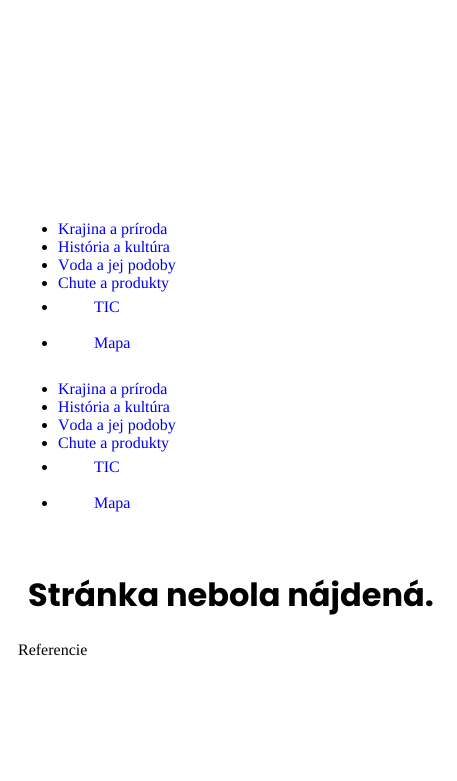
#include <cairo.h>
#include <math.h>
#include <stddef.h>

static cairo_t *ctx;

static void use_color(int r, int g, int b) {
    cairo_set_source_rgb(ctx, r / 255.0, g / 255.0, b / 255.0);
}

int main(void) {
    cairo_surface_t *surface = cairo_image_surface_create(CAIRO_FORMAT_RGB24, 457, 781);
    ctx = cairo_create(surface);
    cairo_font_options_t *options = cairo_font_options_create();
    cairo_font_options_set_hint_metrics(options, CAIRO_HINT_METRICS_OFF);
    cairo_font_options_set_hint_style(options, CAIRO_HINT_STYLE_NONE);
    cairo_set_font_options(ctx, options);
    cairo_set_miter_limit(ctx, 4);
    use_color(255, 255, 255);
    cairo_paint(ctx);
    use_color(0, 0, 0);
    cairo_arc(ctx, 44.5, 229.5, 2.5, 0, 2 * M_PI);
    cairo_fill(ctx);
    cairo_select_font_face(ctx, "Liberation Serif", CAIRO_FONT_SLANT_NORMAL, CAIRO_FONT_WEIGHT_NORMAL);
    cairo_set_font_size(ctx, 16);
    use_color(0, 0, 238);
    cairo_move_to(ctx, 58, 234);
    cairo_show_text(ctx, "Krajina a príroda");
    use_color(0, 0, 0);
    cairo_new_path(ctx);
    cairo_arc(ctx, 44.5, 247.5, 2.5, 0, 2 * M_PI);
    cairo_fill(ctx);
    use_color(0, 0, 238);
    cairo_move_to(ctx, 58, 252);
    cairo_show_text(ctx, "História a kultúra");
    use_color(0, 0, 0);
    cairo_new_path(ctx);
    cairo_arc(ctx, 44.5, 265.5, 2.5, 0, 2 * M_PI);
    cairo_fill(ctx);
    use_color(0, 0, 238);
    cairo_move_to(ctx, 58, 270);
    cairo_show_text(ctx, "Voda a jej podoby");
    use_color(0, 0, 0);
    cairo_new_path(ctx);
    cairo_arc(ctx, 44.5, 283.5, 2.5, 0, 2 * M_PI);
    cairo_fill(ctx);
    use_color(0, 0, 238);
    cairo_move_to(ctx, 58, 288);
    cairo_show_text(ctx, "Chute a produkty");
    use_color(0, 0, 0);
    cairo_new_path(ctx);
    cairo_arc(ctx, 44.5, 307.5, 2.5, 0, 2 * M_PI);
    cairo_fill(ctx);
    use_color(0, 0, 238);
    cairo_move_to(ctx, 94, 312);
    cairo_show_text(ctx, "TIC");
    use_color(0, 0, 0);
    cairo_new_path(ctx);
    cairo_arc(ctx, 44.5, 343.5, 2.5, 0, 2 * M_PI);
    cairo_fill(ctx);
    use_color(0, 0, 238);
    cairo_move_to(ctx, 94, 348);
    cairo_show_text(ctx, "Mapa");
    use_color(0, 0, 0);
    cairo_new_path(ctx);
    cairo_arc(ctx, 44.5, 389.5, 2.5, 0, 2 * M_PI);
    cairo_fill(ctx);
    use_color(0, 0, 238);
    cairo_move_to(ctx, 58, 394);
    cairo_show_text(ctx, "Krajina a príroda");
    use_color(0, 0, 0);
    cairo_new_path(ctx);
    cairo_arc(ctx, 44.5, 407.5, 2.5, 0, 2 * M_PI);
    cairo_fill(ctx);
    use_color(0, 0, 238);
    cairo_move_to(ctx, 58, 412);
    cairo_show_text(ctx, "História a kultúra");
    use_color(0, 0, 0);
    cairo_new_path(ctx);
    cairo_arc(ctx, 44.5, 425.5, 2.5, 0, 2 * M_PI);
    cairo_fill(ctx);
    use_color(0, 0, 238);
    cairo_move_to(ctx, 58, 430);
    cairo_show_text(ctx, "Voda a jej podoby");
    use_color(0, 0, 0);
    cairo_new_path(ctx);
    cairo_arc(ctx, 44.5, 443.5, 2.5, 0, 2 * M_PI);
    cairo_fill(ctx);
    use_color(0, 0, 238);
    cairo_move_to(ctx, 58, 448);
    cairo_show_text(ctx, "Chute a produkty");
    use_color(0, 0, 0);
    cairo_new_path(ctx);
    cairo_arc(ctx, 44.5, 467.5, 2.5, 0, 2 * M_PI);
    cairo_fill(ctx);
    use_color(0, 0, 238);
    cairo_move_to(ctx, 94, 472);
    cairo_show_text(ctx, "TIC");
    use_color(0, 0, 0);
    cairo_new_path(ctx);
    cairo_arc(ctx, 44.5, 503.5, 2.5, 0, 2 * M_PI);
    cairo_fill(ctx);
    use_color(0, 0, 238);
    cairo_move_to(ctx, 94, 508);
    cairo_show_text(ctx, "Mapa");
    cairo_select_font_face(ctx, "Poppins", CAIRO_FONT_SLANT_NORMAL, CAIRO_FONT_WEIGHT_BOLD);
    cairo_set_font_size(ctx, 32);
    use_color(0, 0, 0);
    cairo_move_to(ctx, 28, 606);
    cairo_show_text(ctx, "Stránka nebola nájdená.");
    cairo_select_font_face(ctx, "Liberation Serif", CAIRO_FONT_SLANT_NORMAL, CAIRO_FONT_WEIGHT_NORMAL);
    cairo_set_font_size(ctx, 16);
    cairo_move_to(ctx, 18, 655);
    cairo_show_text(ctx, "Referencie");
    cairo_surface_write_to_png(surface, "result.png");
    cairo_font_options_destroy(options);
    cairo_destroy(ctx);
    cairo_surface_destroy(surface);
    return 0;
}
